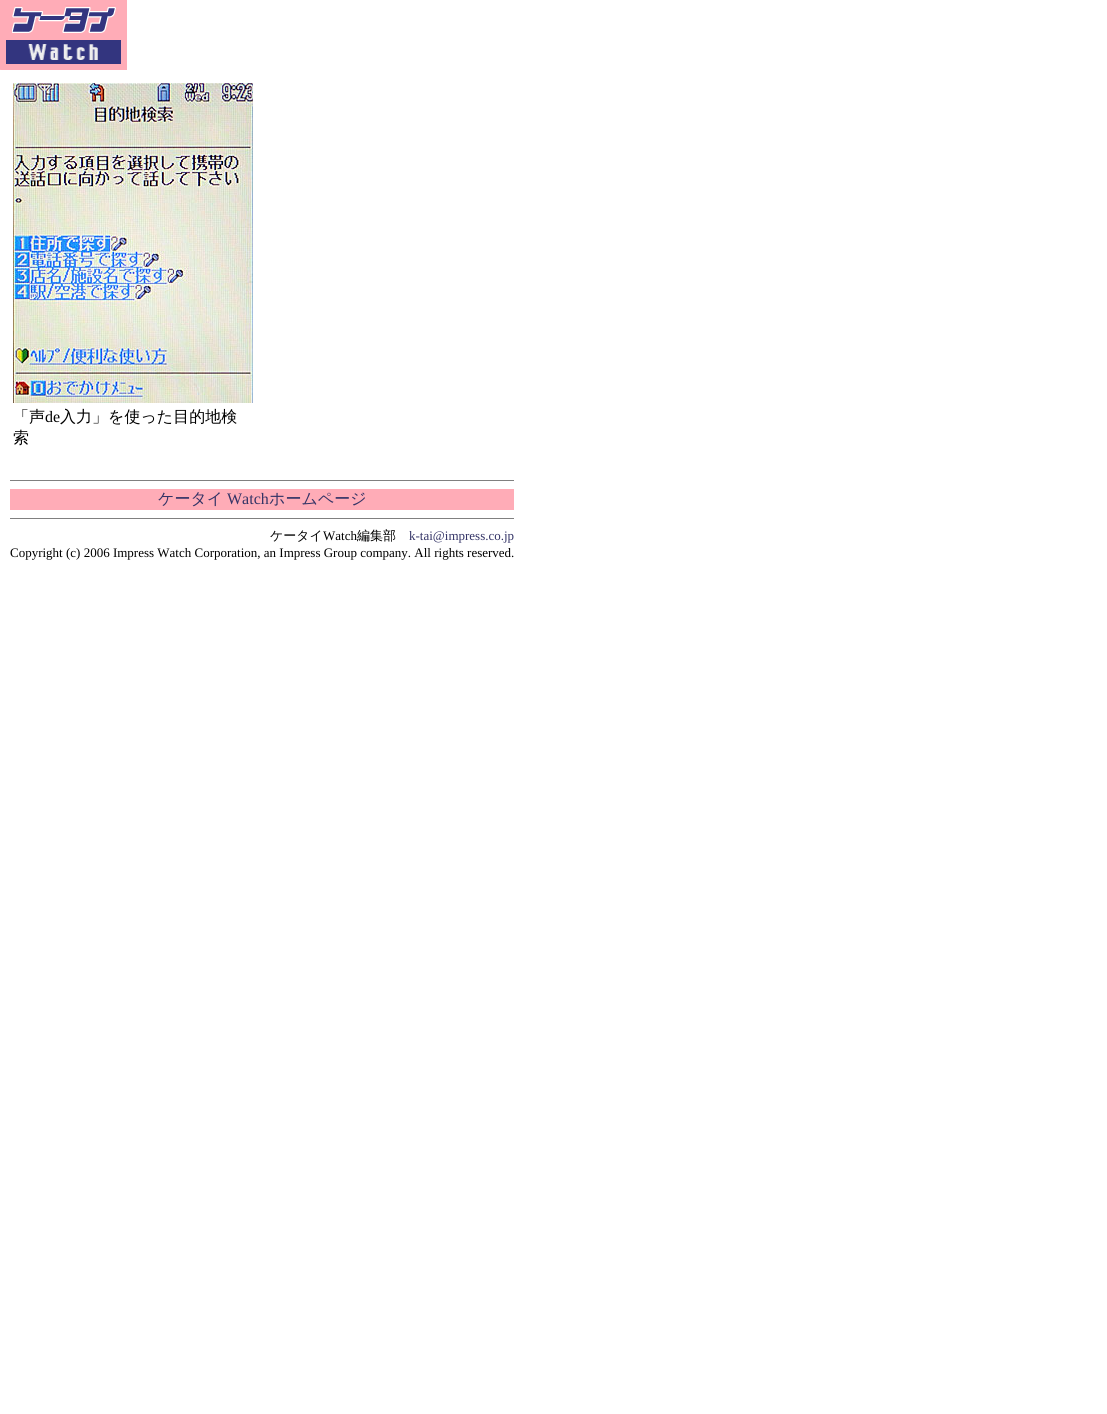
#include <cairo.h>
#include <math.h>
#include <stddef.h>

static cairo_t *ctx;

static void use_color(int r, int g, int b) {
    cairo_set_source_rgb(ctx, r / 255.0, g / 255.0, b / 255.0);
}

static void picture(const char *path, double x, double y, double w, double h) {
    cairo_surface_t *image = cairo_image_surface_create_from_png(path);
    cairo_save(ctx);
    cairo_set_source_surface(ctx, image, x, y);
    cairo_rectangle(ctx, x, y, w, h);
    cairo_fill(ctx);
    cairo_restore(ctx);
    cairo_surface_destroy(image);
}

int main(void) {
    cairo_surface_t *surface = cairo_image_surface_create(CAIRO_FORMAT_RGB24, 1107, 1414);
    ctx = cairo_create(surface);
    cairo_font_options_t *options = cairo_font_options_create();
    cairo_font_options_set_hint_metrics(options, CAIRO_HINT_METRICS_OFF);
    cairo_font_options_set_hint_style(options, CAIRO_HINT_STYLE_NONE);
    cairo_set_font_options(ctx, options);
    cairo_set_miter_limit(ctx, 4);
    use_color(255, 255, 255);
    cairo_paint(ctx);
    use_color(255, 172, 183);
    cairo_rectangle(ctx, 0, 0, 127, 70);
    cairo_fill(ctx);
    picture("img1.png", 0, 5, 121, 65);
    picture("img2.png", 13, 83, 240, 320);
    cairo_select_font_face(ctx, "WenQuanYi Zen Hei Medium", CAIRO_FONT_SLANT_NORMAL, CAIRO_FONT_WEIGHT_NORMAL);
    cairo_set_font_size(ctx, 16);
    use_color(0, 0, 0);
    cairo_move_to(ctx, 13, 422);
    cairo_show_text(ctx, "「声");
    cairo_select_font_face(ctx, "Liberation Serif", CAIRO_FONT_SLANT_NORMAL, CAIRO_FONT_WEIGHT_NORMAL);
    cairo_move_to(ctx, 45, 422);
    cairo_show_text(ctx, "de");
    cairo_select_font_face(ctx, "WenQuanYi Zen Hei Medium", CAIRO_FONT_SLANT_NORMAL, CAIRO_FONT_WEIGHT_NORMAL);
    cairo_move_to(ctx, 60, 422);
    cairo_show_text(ctx, "入力」を使った目的地検");
    cairo_move_to(ctx, 13, 443);
    cairo_show_text(ctx, "索");
    use_color(128, 128, 128);
    cairo_rectangle(ctx, 10, 480, 504, 1);
    cairo_fill(ctx);
    use_color(255, 172, 183);
    cairo_rectangle(ctx, 10, 489, 504, 21);
    cairo_fill(ctx);
    use_color(51, 51, 102);
    cairo_move_to(ctx, 158, 504);
    cairo_show_text(ctx, "ケータイ");
    cairo_select_font_face(ctx, "Liberation Serif", CAIRO_FONT_SLANT_NORMAL, CAIRO_FONT_WEIGHT_NORMAL);
    cairo_move_to(ctx, 227, 504);
    cairo_show_text(ctx, "Watch");
    cairo_select_font_face(ctx, "WenQuanYi Zen Hei Medium", CAIRO_FONT_SLANT_NORMAL, CAIRO_FONT_WEIGHT_NORMAL);
    cairo_move_to(ctx, 269, 504);
    cairo_show_text(ctx, "ホームページ");
    use_color(128, 128, 128);
    cairo_rectangle(ctx, 10, 518, 504, 1);
    cairo_fill(ctx);
    cairo_set_font_size(ctx, 13);
    use_color(0, 0, 0);
    cairo_move_to(ctx, 270, 540);
    cairo_show_text(ctx, "ケータイ");
    cairo_select_font_face(ctx, "Liberation Serif", CAIRO_FONT_SLANT_NORMAL, CAIRO_FONT_WEIGHT_NORMAL);
    cairo_move_to(ctx, 323, 540);
    cairo_show_text(ctx, "Watch");
    cairo_select_font_face(ctx, "WenQuanYi Zen Hei Medium", CAIRO_FONT_SLANT_NORMAL, CAIRO_FONT_WEIGHT_NORMAL);
    cairo_move_to(ctx, 357, 540);
    cairo_show_text(ctx, "編集部");
    cairo_select_font_face(ctx, "Liberation Serif", CAIRO_FONT_SLANT_NORMAL, CAIRO_FONT_WEIGHT_NORMAL);
    use_color(51, 51, 102);
    cairo_move_to(ctx, 409, 540);
    cairo_show_text(ctx, "k-tai@impress.co.jp");
    use_color(0, 0, 0);
    cairo_move_to(ctx, 10, 557);
    cairo_show_text(ctx, "Copyright (c) 2006 Impress Watch Corporation, an Impress Group company. All rights reserved.");
    cairo_surface_write_to_png(surface, "result.png");
    cairo_font_options_destroy(options);
    cairo_destroy(ctx);
    cairo_surface_destroy(surface);
    return 0;
}
